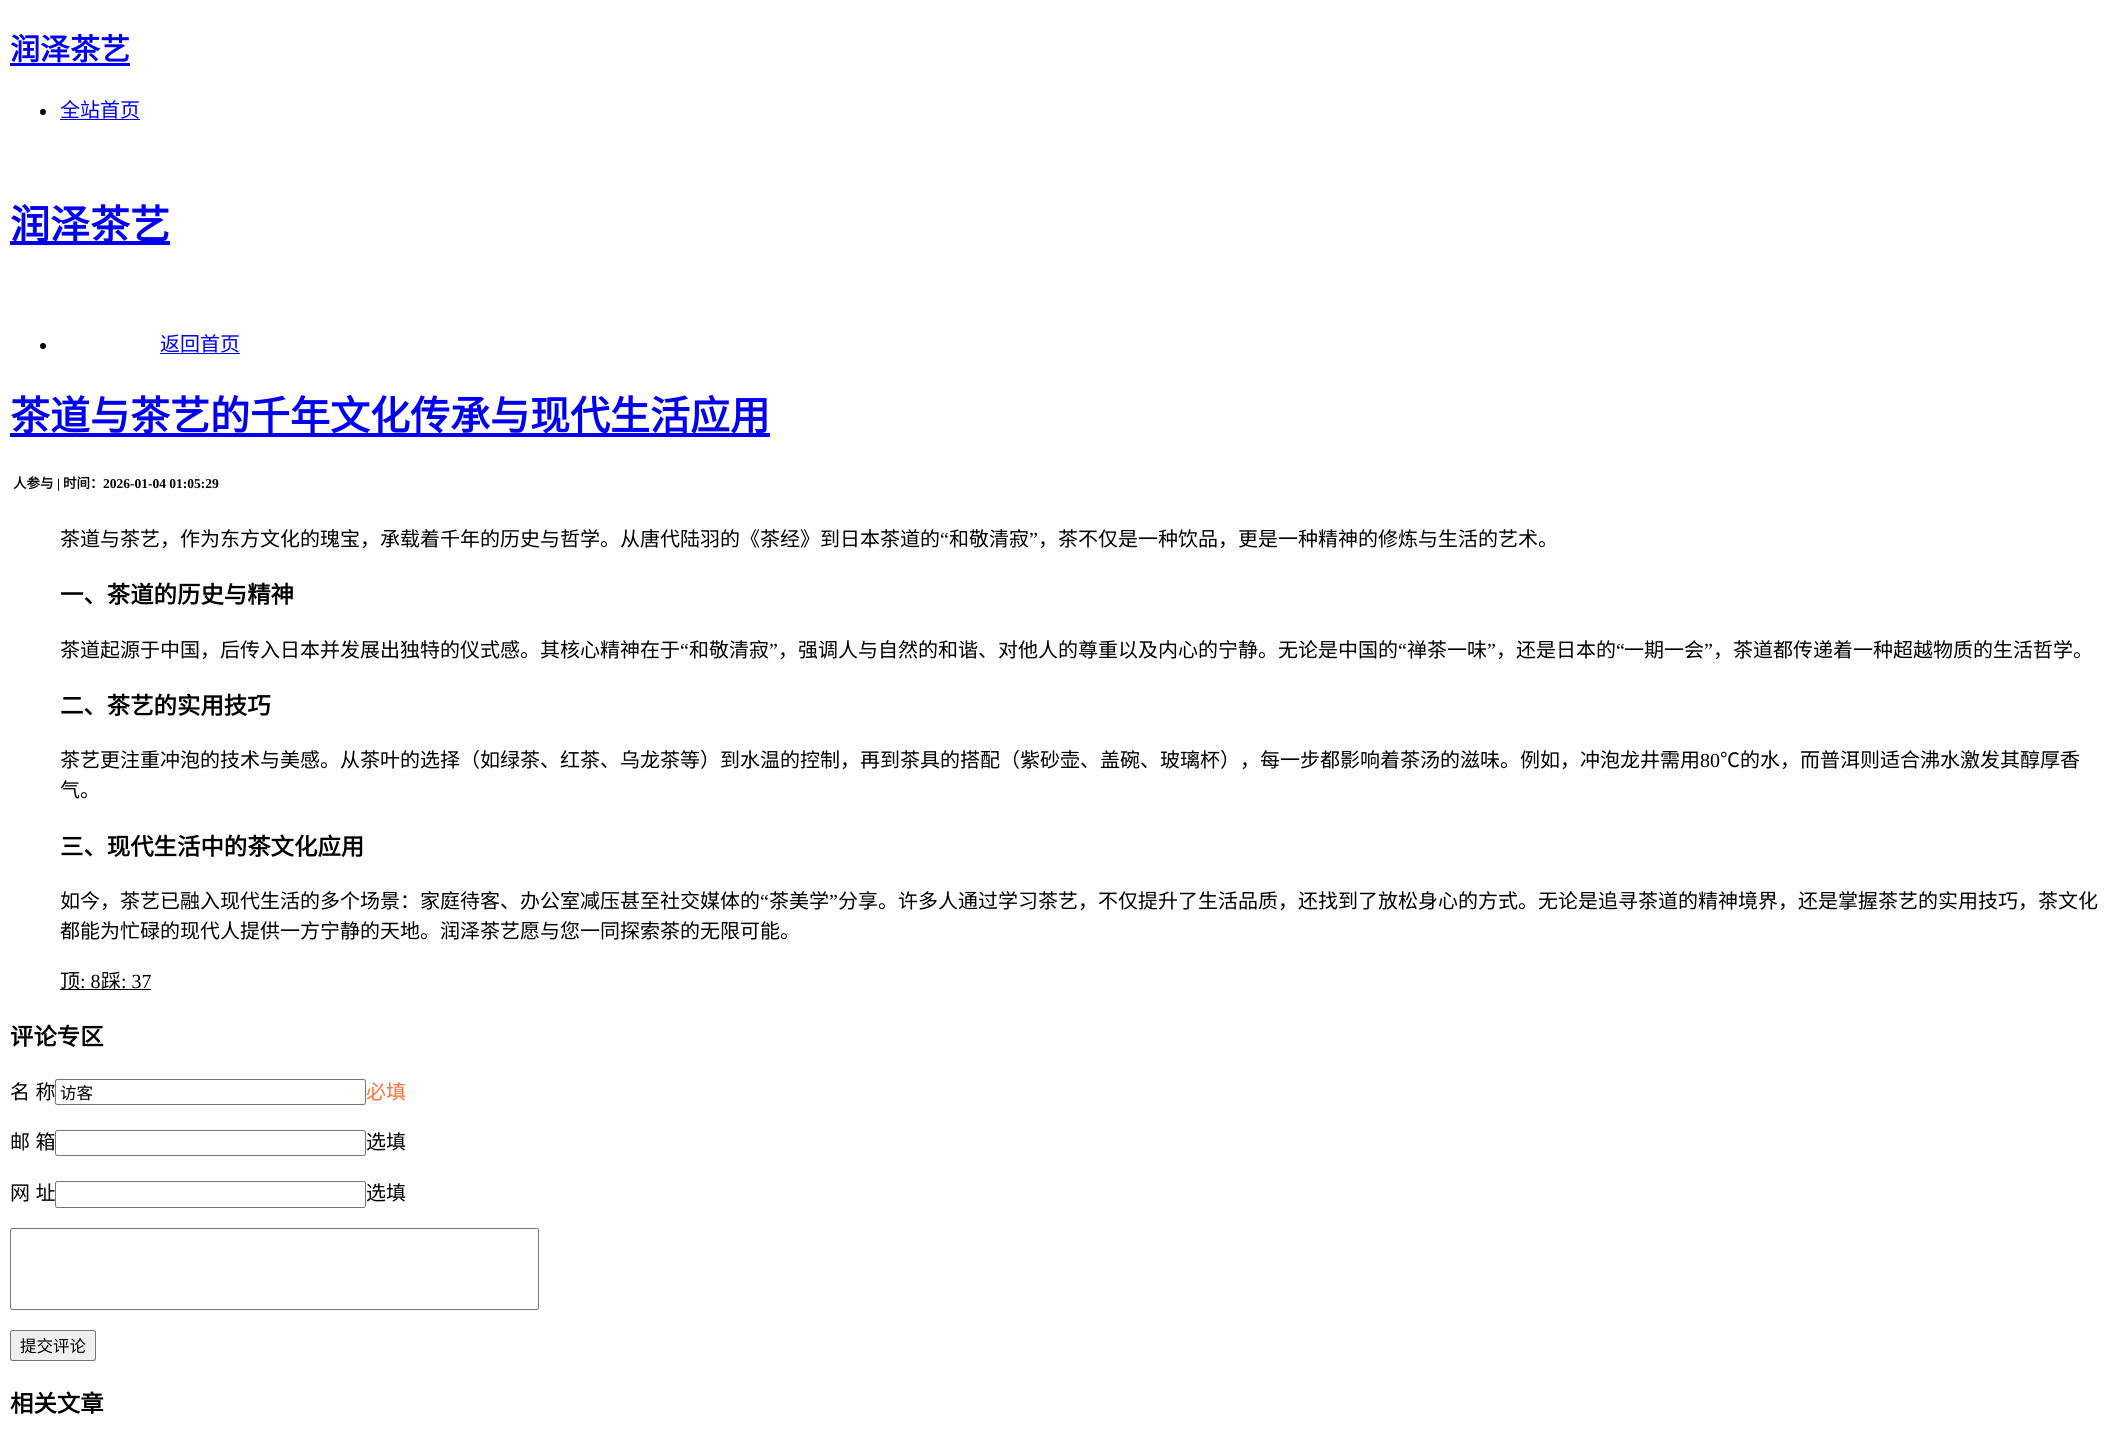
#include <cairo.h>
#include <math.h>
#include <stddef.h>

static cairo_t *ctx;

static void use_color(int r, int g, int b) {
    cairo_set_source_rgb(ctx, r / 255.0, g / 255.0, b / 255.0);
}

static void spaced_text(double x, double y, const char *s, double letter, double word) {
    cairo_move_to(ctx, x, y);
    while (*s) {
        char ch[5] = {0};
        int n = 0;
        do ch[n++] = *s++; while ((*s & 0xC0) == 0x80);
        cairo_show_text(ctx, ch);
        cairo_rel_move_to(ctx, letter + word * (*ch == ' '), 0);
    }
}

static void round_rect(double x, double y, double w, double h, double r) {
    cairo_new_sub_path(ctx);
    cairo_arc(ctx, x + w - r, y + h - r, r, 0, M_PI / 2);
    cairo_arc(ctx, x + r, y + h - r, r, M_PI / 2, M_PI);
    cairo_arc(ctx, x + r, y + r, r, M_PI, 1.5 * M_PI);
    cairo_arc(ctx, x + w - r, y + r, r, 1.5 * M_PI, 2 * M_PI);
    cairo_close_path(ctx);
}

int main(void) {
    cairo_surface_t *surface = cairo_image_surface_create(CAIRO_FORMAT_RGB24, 2112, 1455);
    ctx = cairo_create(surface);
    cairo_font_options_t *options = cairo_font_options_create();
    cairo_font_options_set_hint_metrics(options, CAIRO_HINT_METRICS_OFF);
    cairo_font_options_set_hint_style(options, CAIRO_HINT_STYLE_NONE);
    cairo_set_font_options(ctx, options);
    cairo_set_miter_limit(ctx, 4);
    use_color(255, 255, 255);
    cairo_paint(ctx);
    cairo_select_font_face(ctx, "Noto Sans CJK SC", CAIRO_FONT_SLANT_NORMAL, CAIRO_FONT_WEIGHT_BOLD);
    cairo_set_font_size(ctx, 30);
    use_color(0, 0, 238);
    cairo_move_to(ctx, 10, 60);
    cairo_show_text(ctx, "润泽茶艺");
    cairo_rectangle(ctx, 10, 63, 120, 3);
    cairo_fill(ctx);
    use_color(0, 0, 0);
    cairo_arc(ctx, 43, 112, 3, 0, 2 * M_PI);
    cairo_fill(ctx);
    cairo_select_font_face(ctx, "Noto Sans CJK SC", CAIRO_FONT_SLANT_NORMAL, CAIRO_FONT_WEIGHT_NORMAL);
    cairo_set_font_size(ctx, 20);
    use_color(0, 0, 238);
    cairo_move_to(ctx, 60, 117);
    cairo_show_text(ctx, "全站首页");
    cairo_rectangle(ctx, 60, 119, 80, 1);
    cairo_fill(ctx);
    cairo_rectangle(ctx, 10, 241, 160, 4);
    cairo_fill(ctx);
    cairo_select_font_face(ctx, "Noto Sans CJK SC", CAIRO_FONT_SLANT_NORMAL, CAIRO_FONT_WEIGHT_BOLD);
    cairo_set_font_size(ctx, 40);
    cairo_move_to(ctx, 10, 239);
    cairo_show_text(ctx, "润泽茶艺");
    use_color(0, 0, 0);
    cairo_new_path(ctx);
    cairo_arc(ctx, 43, 346, 3, 0, 2 * M_PI);
    cairo_fill(ctx);
    cairo_select_font_face(ctx, "Noto Sans CJK SC", CAIRO_FONT_SLANT_NORMAL, CAIRO_FONT_WEIGHT_NORMAL);
    cairo_set_font_size(ctx, 20);
    use_color(0, 0, 238);
    cairo_move_to(ctx, 160, 351);
    cairo_show_text(ctx, "返回首页");
    cairo_rectangle(ctx, 160, 353, 80, 1);
    cairo_fill(ctx);
    cairo_rectangle(ctx, 10, 433, 760, 4);
    cairo_fill(ctx);
    cairo_select_font_face(ctx, "Noto Sans CJK SC", CAIRO_FONT_SLANT_NORMAL, CAIRO_FONT_WEIGHT_BOLD);
    cairo_set_font_size(ctx, 40);
    cairo_move_to(ctx, 10, 430);
    cairo_show_text(ctx, "茶道与茶艺的千年文化传承与现代生活应用");
    cairo_set_font_size(ctx, 13.5);
    use_color(0, 0, 0);
    cairo_move_to(ctx, 13, 488);
    cairo_show_text(ctx, "人参与");
    cairo_select_font_face(ctx, "Liberation Serif", CAIRO_FONT_SLANT_NORMAL, CAIRO_FONT_WEIGHT_BOLD);
    cairo_move_to(ctx, 57, 488);
    cairo_show_text(ctx, "|");
    cairo_select_font_face(ctx, "Noto Sans CJK SC", CAIRO_FONT_SLANT_NORMAL, CAIRO_FONT_WEIGHT_BOLD);
    cairo_move_to(ctx, 63, 488);
    cairo_show_text(ctx, "时间：");
    cairo_select_font_face(ctx, "Liberation Serif", CAIRO_FONT_SLANT_NORMAL, CAIRO_FONT_WEIGHT_BOLD);
    cairo_move_to(ctx, 103, 488);
    cairo_show_text(ctx, "2026-01-04 01:05:29");
    cairo_select_font_face(ctx, "Noto Sans CJK SC", CAIRO_FONT_SLANT_NORMAL, CAIRO_FONT_WEIGHT_NORMAL);
    cairo_set_font_size(ctx, 20);
    cairo_move_to(ctx, 60, 546);
    cairo_show_text(ctx, "茶道与茶艺，作为东方文化的瑰宝，承载着千年的历史与哲学。从唐代陆羽的《茶经》到日本茶道的");
    cairo_select_font_face(ctx, "Liberation Serif", CAIRO_FONT_SLANT_NORMAL, CAIRO_FONT_WEIGHT_NORMAL);
    cairo_move_to(ctx, 940, 546);
    cairo_show_text(ctx, "“");
    cairo_select_font_face(ctx, "Noto Sans CJK SC", CAIRO_FONT_SLANT_NORMAL, CAIRO_FONT_WEIGHT_NORMAL);
    cairo_move_to(ctx, 949, 546);
    cairo_show_text(ctx, "和敬清寂");
    cairo_select_font_face(ctx, "Liberation Serif", CAIRO_FONT_SLANT_NORMAL, CAIRO_FONT_WEIGHT_NORMAL);
    cairo_move_to(ctx, 1029, 546);
    cairo_show_text(ctx, "”");
    cairo_select_font_face(ctx, "Noto Sans CJK SC", CAIRO_FONT_SLANT_NORMAL, CAIRO_FONT_WEIGHT_NORMAL);
    cairo_move_to(ctx, 1038, 546);
    cairo_show_text(ctx, "，茶不仅是一种饮品，更是一种精神的修炼与生活的艺术。");
    cairo_select_font_face(ctx, "Noto Sans CJK SC", CAIRO_FONT_SLANT_NORMAL, CAIRO_FONT_WEIGHT_BOLD);
    cairo_set_font_size(ctx, 23.4);
    cairo_move_to(ctx, 60, 603);
    cairo_show_text(ctx, "一、茶道的历史与精神");
    cairo_select_font_face(ctx, "Noto Sans CJK SC", CAIRO_FONT_SLANT_NORMAL, CAIRO_FONT_WEIGHT_NORMAL);
    cairo_set_font_size(ctx, 20);
    cairo_move_to(ctx, 60, 657);
    cairo_show_text(ctx, "茶道起源于中国，后传入日本并发展出独特的仪式感。其核心精神在于");
    cairo_select_font_face(ctx, "Liberation Serif", CAIRO_FONT_SLANT_NORMAL, CAIRO_FONT_WEIGHT_NORMAL);
    cairo_move_to(ctx, 680, 657);
    cairo_show_text(ctx, "“");
    cairo_select_font_face(ctx, "Noto Sans CJK SC", CAIRO_FONT_SLANT_NORMAL, CAIRO_FONT_WEIGHT_NORMAL);
    cairo_move_to(ctx, 689, 657);
    cairo_show_text(ctx, "和敬清寂");
    cairo_select_font_face(ctx, "Liberation Serif", CAIRO_FONT_SLANT_NORMAL, CAIRO_FONT_WEIGHT_NORMAL);
    cairo_move_to(ctx, 769, 657);
    cairo_show_text(ctx, "”");
    cairo_select_font_face(ctx, "Noto Sans CJK SC", CAIRO_FONT_SLANT_NORMAL, CAIRO_FONT_WEIGHT_NORMAL);
    cairo_move_to(ctx, 778, 657);
    cairo_show_text(ctx, "，强调人与自然的和谐、对他人的尊重以及内心的宁静。无论是中国的");
    cairo_select_font_face(ctx, "Liberation Serif", CAIRO_FONT_SLANT_NORMAL, CAIRO_FONT_WEIGHT_NORMAL);
    cairo_move_to(ctx, 1398, 657);
    cairo_show_text(ctx, "“");
    cairo_select_font_face(ctx, "Noto Sans CJK SC", CAIRO_FONT_SLANT_NORMAL, CAIRO_FONT_WEIGHT_NORMAL);
    cairo_move_to(ctx, 1407, 657);
    cairo_show_text(ctx, "禅茶一味");
    cairo_select_font_face(ctx, "Liberation Serif", CAIRO_FONT_SLANT_NORMAL, CAIRO_FONT_WEIGHT_NORMAL);
    cairo_move_to(ctx, 1487, 657);
    cairo_show_text(ctx, "”");
    cairo_select_font_face(ctx, "Noto Sans CJK SC", CAIRO_FONT_SLANT_NORMAL, CAIRO_FONT_WEIGHT_NORMAL);
    cairo_move_to(ctx, 1496, 657);
    cairo_show_text(ctx, "，还是日本的");
    cairo_select_font_face(ctx, "Liberation Serif", CAIRO_FONT_SLANT_NORMAL, CAIRO_FONT_WEIGHT_NORMAL);
    cairo_move_to(ctx, 1616, 657);
    cairo_show_text(ctx, "“");
    cairo_select_font_face(ctx, "Noto Sans CJK SC", CAIRO_FONT_SLANT_NORMAL, CAIRO_FONT_WEIGHT_NORMAL);
    cairo_move_to(ctx, 1624, 657);
    cairo_show_text(ctx, "一期一会");
    cairo_select_font_face(ctx, "Liberation Serif", CAIRO_FONT_SLANT_NORMAL, CAIRO_FONT_WEIGHT_NORMAL);
    cairo_move_to(ctx, 1704, 657);
    cairo_show_text(ctx, "”");
    cairo_select_font_face(ctx, "Noto Sans CJK SC", CAIRO_FONT_SLANT_NORMAL, CAIRO_FONT_WEIGHT_NORMAL);
    cairo_move_to(ctx, 1713, 657);
    cairo_show_text(ctx, "，茶道都传递着一种超越物质的生活哲学。");
    cairo_select_font_face(ctx, "Noto Sans CJK SC", CAIRO_FONT_SLANT_NORMAL, CAIRO_FONT_WEIGHT_BOLD);
    cairo_set_font_size(ctx, 23.4);
    cairo_move_to(ctx, 60, 714);
    cairo_show_text(ctx, "二、茶艺的实用技巧");
    cairo_select_font_face(ctx, "Noto Sans CJK SC", CAIRO_FONT_SLANT_NORMAL, CAIRO_FONT_WEIGHT_NORMAL);
    cairo_set_font_size(ctx, 20);
    cairo_move_to(ctx, 60, 767);
    cairo_show_text(ctx, "茶艺更注重冲泡的技术与美感。从茶叶的选择（如绿茶、红茶、乌龙茶等）到水温的控制，再到茶具的搭配（紫砂壶、盖碗、玻璃杯），每一步都影响着茶汤的滋味。例如，冲泡龙井需用");
    cairo_select_font_face(ctx, "Liberation Serif", CAIRO_FONT_SLANT_NORMAL, CAIRO_FONT_WEIGHT_NORMAL);
    cairo_move_to(ctx, 1700, 767);
    cairo_show_text(ctx, "80");
    cairo_select_font_face(ctx, "Noto Sans CJK SC", CAIRO_FONT_SLANT_NORMAL, CAIRO_FONT_WEIGHT_NORMAL);
    cairo_move_to(ctx, 1720, 767);
    cairo_show_text(ctx, "℃的水，而普洱则适合沸水激发其醇厚香");
    cairo_move_to(ctx, 60, 797);
    cairo_show_text(ctx, "气。");
    cairo_select_font_face(ctx, "Noto Sans CJK SC", CAIRO_FONT_SLANT_NORMAL, CAIRO_FONT_WEIGHT_BOLD);
    cairo_set_font_size(ctx, 23.4);
    cairo_move_to(ctx, 60, 855);
    cairo_show_text(ctx, "三、现代生活中的茶文化应用");
    cairo_select_font_face(ctx, "Noto Sans CJK SC", CAIRO_FONT_SLANT_NORMAL, CAIRO_FONT_WEIGHT_NORMAL);
    cairo_set_font_size(ctx, 20);
    cairo_move_to(ctx, 60, 908);
    cairo_show_text(ctx, "如今，茶艺已融入现代生活的多个场景：家庭待客、办公室减压甚至社交媒体的");
    cairo_select_font_face(ctx, "Liberation Serif", CAIRO_FONT_SLANT_NORMAL, CAIRO_FONT_WEIGHT_NORMAL);
    cairo_move_to(ctx, 760, 908);
    cairo_show_text(ctx, "“");
    cairo_select_font_face(ctx, "Noto Sans CJK SC", CAIRO_FONT_SLANT_NORMAL, CAIRO_FONT_WEIGHT_NORMAL);
    cairo_move_to(ctx, 769, 908);
    cairo_show_text(ctx, "茶美学");
    cairo_select_font_face(ctx, "Liberation Serif", CAIRO_FONT_SLANT_NORMAL, CAIRO_FONT_WEIGHT_NORMAL);
    cairo_move_to(ctx, 829, 908);
    cairo_show_text(ctx, "”");
    cairo_select_font_face(ctx, "Noto Sans CJK SC", CAIRO_FONT_SLANT_NORMAL, CAIRO_FONT_WEIGHT_NORMAL);
    cairo_move_to(ctx, 838, 908);
    cairo_show_text(ctx, "分享。许多人通过学习茶艺，不仅提升了生活品质，还找到了放松身心的方式。无论是追寻茶道的精神境界，还是掌握茶艺的实用技巧，茶文化");
    cairo_move_to(ctx, 60, 938);
    cairo_show_text(ctx, "都能为忙碌的现代人提供一方宁静的天地。润泽茶艺愿与您一同探索茶的无限可能。");
    cairo_rectangle(ctx, 60, 989, 91, 1);
    cairo_fill(ctx);
    cairo_move_to(ctx, 60, 988);
    cairo_show_text(ctx, "顶");
    cairo_select_font_face(ctx, "Liberation Serif", CAIRO_FONT_SLANT_NORMAL, CAIRO_FONT_WEIGHT_NORMAL);
    cairo_move_to(ctx, 80, 988);
    cairo_show_text(ctx, ": 8");
    cairo_select_font_face(ctx, "Noto Sans CJK SC", CAIRO_FONT_SLANT_NORMAL, CAIRO_FONT_WEIGHT_NORMAL);
    cairo_move_to(ctx, 101, 988);
    cairo_show_text(ctx, "踩");
    cairo_select_font_face(ctx, "Liberation Serif", CAIRO_FONT_SLANT_NORMAL, CAIRO_FONT_WEIGHT_NORMAL);
    cairo_move_to(ctx, 121, 988);
    cairo_show_text(ctx, ": 37");
    cairo_select_font_face(ctx, "Noto Sans CJK SC", CAIRO_FONT_SLANT_NORMAL, CAIRO_FONT_WEIGHT_BOLD);
    cairo_set_font_size(ctx, 23.4);
    cairo_move_to(ctx, 10, 1045);
    cairo_show_text(ctx, "评论专区");
    cairo_select_font_face(ctx, "Noto Sans CJK SC", CAIRO_FONT_SLANT_NORMAL, CAIRO_FONT_WEIGHT_NORMAL);
    cairo_set_font_size(ctx, 20);
    spaced_text(10, 1099, "名 称", 0, 1);
    round_rect(55.5, 1079.5, 310, 25, 2);
    use_color(118, 118, 118);
    cairo_set_line_width(ctx, 1);
    cairo_stroke(ctx);
    cairo_set_font_size(ctx, 16.5);
    use_color(0, 0, 0);
    cairo_move_to(ctx, 60, 1099);
    cairo_show_text(ctx, "访客");
    cairo_set_font_size(ctx, 20);
    use_color(255, 111, 61);
    cairo_move_to(ctx, 366, 1099);
    cairo_show_text(ctx, "必填");
    use_color(0, 0, 0);
    spaced_text(10, 1149, "邮 箱", 0, 1);
    round_rect(55.5, 1130.5, 310, 25, 2);
    use_color(118, 118, 118);
    cairo_stroke(ctx);
    use_color(0, 0, 0);
    cairo_move_to(ctx, 366, 1149);
    cairo_show_text(ctx, "选填");
    spaced_text(10, 1200, "网 址", 0, 1);
    round_rect(55.5, 1181.5, 310, 26, 2);
    use_color(118, 118, 118);
    cairo_stroke(ctx);
    use_color(0, 0, 0);
    cairo_move_to(ctx, 366, 1200);
    cairo_show_text(ctx, "选填");
    round_rect(10.5, 1228.5, 528, 81, 2);
    use_color(118, 118, 118);
    cairo_stroke(ctx);
    use_color(239, 239, 239);
    round_rect(10.5, 1330.5, 85, 30, 2);
    cairo_fill_preserve(ctx);
    use_color(118, 118, 118);
    cairo_stroke(ctx);
    cairo_set_font_size(ctx, 16.5);
    use_color(0, 0, 0);
    cairo_move_to(ctx, 20, 1352);
    cairo_show_text(ctx, "提交评论");
    cairo_select_font_face(ctx, "Noto Sans CJK SC", CAIRO_FONT_SLANT_NORMAL, CAIRO_FONT_WEIGHT_BOLD);
    cairo_set_font_size(ctx, 23.4);
    cairo_move_to(ctx, 10, 1412);
    cairo_show_text(ctx, "相关文章");
    cairo_surface_write_to_png(surface, "result.png");
    cairo_font_options_destroy(options);
    cairo_destroy(ctx);
    cairo_surface_destroy(surface);
    return 0;
}
